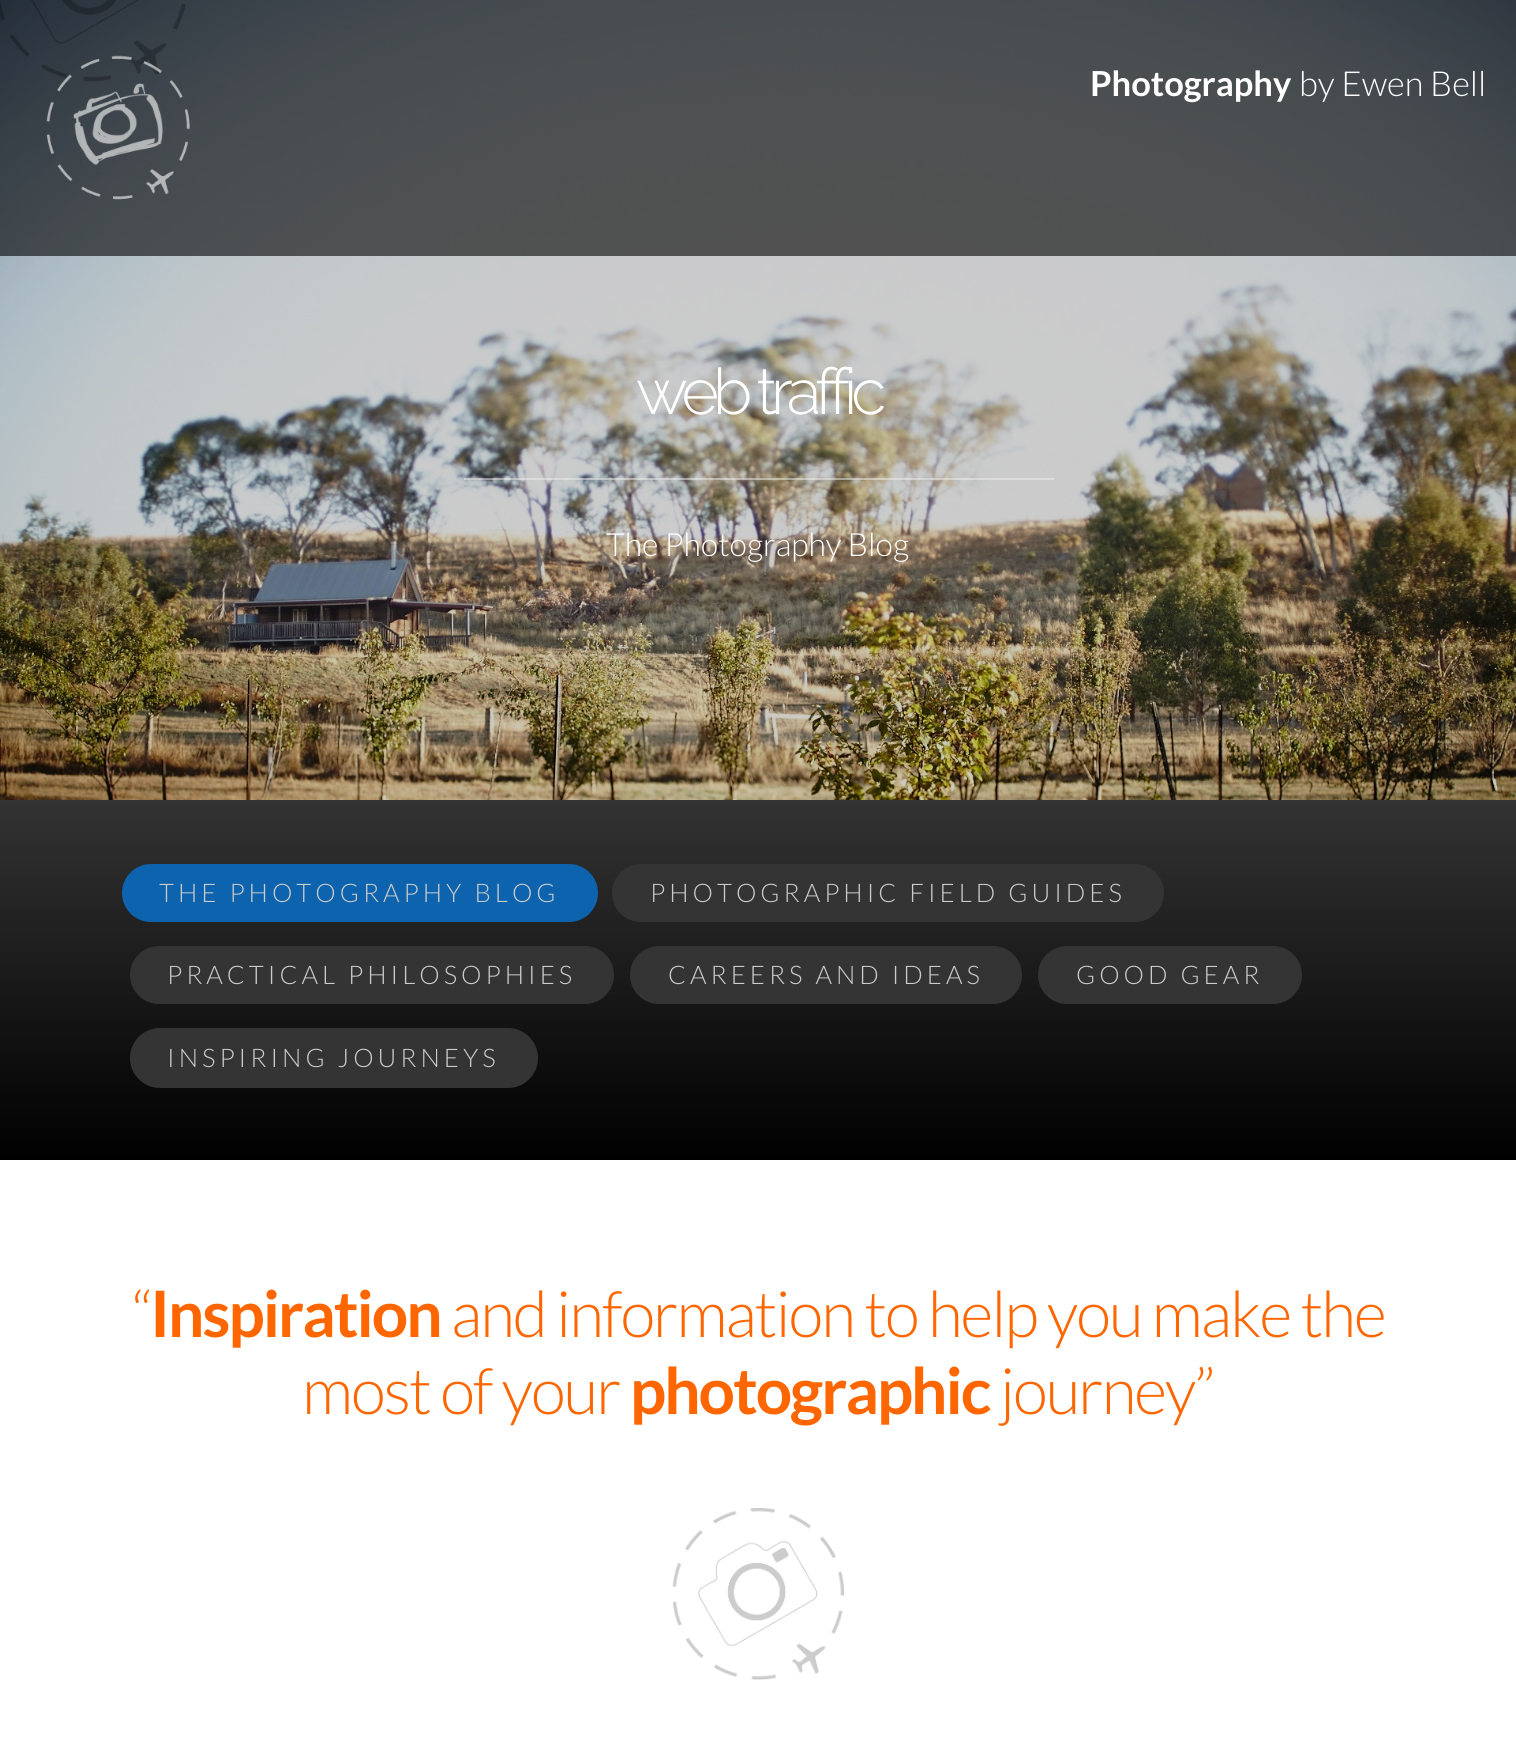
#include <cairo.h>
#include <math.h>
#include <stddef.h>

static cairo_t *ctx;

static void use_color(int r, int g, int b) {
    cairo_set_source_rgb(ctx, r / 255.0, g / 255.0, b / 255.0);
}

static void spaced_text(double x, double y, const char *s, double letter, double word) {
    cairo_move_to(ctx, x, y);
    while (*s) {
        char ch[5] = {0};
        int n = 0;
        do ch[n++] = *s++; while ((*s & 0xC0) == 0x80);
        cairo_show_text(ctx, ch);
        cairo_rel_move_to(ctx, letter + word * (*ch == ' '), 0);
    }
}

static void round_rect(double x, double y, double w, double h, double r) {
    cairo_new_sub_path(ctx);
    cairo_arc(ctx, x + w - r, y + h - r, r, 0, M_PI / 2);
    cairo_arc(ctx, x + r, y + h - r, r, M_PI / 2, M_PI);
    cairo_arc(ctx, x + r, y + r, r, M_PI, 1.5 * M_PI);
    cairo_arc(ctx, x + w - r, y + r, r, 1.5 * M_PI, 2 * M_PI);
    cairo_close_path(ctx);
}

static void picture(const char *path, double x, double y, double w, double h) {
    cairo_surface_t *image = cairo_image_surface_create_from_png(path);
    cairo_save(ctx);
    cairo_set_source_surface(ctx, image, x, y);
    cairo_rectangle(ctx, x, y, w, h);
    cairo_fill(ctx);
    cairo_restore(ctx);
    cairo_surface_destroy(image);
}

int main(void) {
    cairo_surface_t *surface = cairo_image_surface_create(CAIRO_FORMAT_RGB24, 1516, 1749);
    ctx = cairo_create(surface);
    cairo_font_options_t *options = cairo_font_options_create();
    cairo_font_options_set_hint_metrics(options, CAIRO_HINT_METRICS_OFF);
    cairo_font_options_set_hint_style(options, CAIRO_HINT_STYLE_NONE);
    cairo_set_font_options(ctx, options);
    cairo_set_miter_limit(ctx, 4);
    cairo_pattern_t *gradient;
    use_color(255, 255, 255);
    cairo_paint(ctx);
    picture("img2.png", 0, 0, 1516, 800);
    picture("img3.png", 0, 0, 1516, 800);
    cairo_set_source_rgba(ctx, 0, 0, 0, 0.6);
    cairo_rectangle(ctx, 0, 0, 1516, 256);
    cairo_fill(ctx);
    picture("img1.png", 46, 55, 144, 145);
    cairo_select_font_face(ctx, "Lato", CAIRO_FONT_SLANT_NORMAL, CAIRO_FONT_WEIGHT_BOLD);
    cairo_set_font_size(ctx, 34.5);
    use_color(255, 255, 255);
    cairo_move_to(ctx, 1090, 96);
    cairo_show_text(ctx, "Photography");
    cairo_select_font_face(ctx, "Lato Light", CAIRO_FONT_SLANT_NORMAL, CAIRO_FONT_WEIGHT_NORMAL);
    cairo_move_to(ctx, 1299, 96);
    cairo_show_text(ctx, "by Ewen Bell");
    cairo_select_font_face(ctx, "Raleway Light", CAIRO_FONT_SLANT_NORMAL, CAIRO_FONT_WEIGHT_NORMAL);
    cairo_set_font_size(ctx, 64);
    spaced_text(636, 414, "web traffic", -6, 0);
    cairo_set_source_rgba(ctx, 0.933, 0.933, 0.933, 0.5);
    cairo_rectangle(ctx, 464, 478, 590, 2);
    cairo_fill(ctx);
    cairo_select_font_face(ctx, "Lato Light", CAIRO_FONT_SLANT_NORMAL, CAIRO_FONT_WEIGHT_NORMAL);
    cairo_set_font_size(ctx, 32);
    use_color(255, 255, 255);
    cairo_move_to(ctx, 606, 556);
    cairo_show_text(ctx, "The Photography Blog");
    gradient = cairo_pattern_create_linear(758, 800, 758, 1160);
    cairo_pattern_add_color_stop_rgba(gradient, 0, 0.2, 0.2, 0.2, 1);
    cairo_pattern_add_color_stop_rgba(gradient, 1, 0, 0, 0, 1);
    cairo_set_source(ctx, gradient);
    cairo_pattern_destroy(gradient);
    cairo_rectangle(ctx, 0, 800, 1516, 360);
    cairo_fill(ctx);
    use_color(13, 99, 173);
    round_rect(123, 865, 474, 56, 28);
    cairo_fill_preserve(ctx);
    cairo_stroke(ctx);
    cairo_set_font_size(ctx, 25.6);
    use_color(204, 204, 204);
    spaced_text(159, 902, "THE PHOTOGRAPHY BLOG", 4, 0);
    use_color(52, 52, 52);
    round_rect(613, 865, 550, 56, 28);
    cairo_fill_preserve(ctx);
    cairo_stroke(ctx);
    use_color(204, 204, 204);
    spaced_text(650, 902, "PHOTOGRAPHIC FIELD GUIDES", 4, 0);
    use_color(52, 52, 52);
    round_rect(131, 947, 482, 56, 28);
    cairo_fill_preserve(ctx);
    cairo_stroke(ctx);
    use_color(204, 204, 204);
    spaced_text(167, 984, "PRACTICAL PHILOSOPHIES", 4, 0);
    use_color(52, 52, 52);
    round_rect(631, 947, 390, 56, 28);
    cairo_fill_preserve(ctx);
    cairo_stroke(ctx);
    use_color(204, 204, 204);
    spaced_text(668, 984, "CAREERS AND IDEAS", 4, 0);
    use_color(52, 52, 52);
    round_rect(1039, 947, 262, 56, 28);
    cairo_fill_preserve(ctx);
    cairo_stroke(ctx);
    use_color(204, 204, 204);
    spaced_text(1076, 984, "GOOD GEAR", 4, 0);
    use_color(52, 52, 52);
    round_rect(131, 1029, 406, 58, 29);
    cairo_fill_preserve(ctx);
    cairo_stroke(ctx);
    use_color(204, 204, 204);
    spaced_text(167, 1067, "INSPIRING JOURNEYS", 4, 0);
    cairo_set_font_size(ctx, 64);
    use_color(255, 102, 0);
    spaced_text(131, 1337, "“", -2, 0);
    cairo_select_font_face(ctx, "Lato", CAIRO_FONT_SLANT_NORMAL, CAIRO_FONT_WEIGHT_BOLD);
    spaced_text(150, 1337, "Inspiration", -2, 0);
    cairo_select_font_face(ctx, "Lato Light", CAIRO_FONT_SLANT_NORMAL, CAIRO_FONT_WEIGHT_NORMAL);
    spaced_text(451, 1337, "and information to help you make the", -2, 0);
    spaced_text(302, 1414, "most of your", -2, 0);
    cairo_select_font_face(ctx, "Lato", CAIRO_FONT_SLANT_NORMAL, CAIRO_FONT_WEIGHT_BOLD);
    spaced_text(630, 1414, "photographic", -2, 0);
    cairo_select_font_face(ctx, "Lato Light", CAIRO_FONT_SLANT_NORMAL, CAIRO_FONT_WEIGHT_NORMAL);
    spaced_text(1000, 1414, "journey”", -2, 0);
    picture("img4.png", 672, 1508, 173, 172);
    cairo_surface_write_to_png(surface, "result.png");
    cairo_font_options_destroy(options);
    cairo_destroy(ctx);
    cairo_surface_destroy(surface);
    return 0;
}
